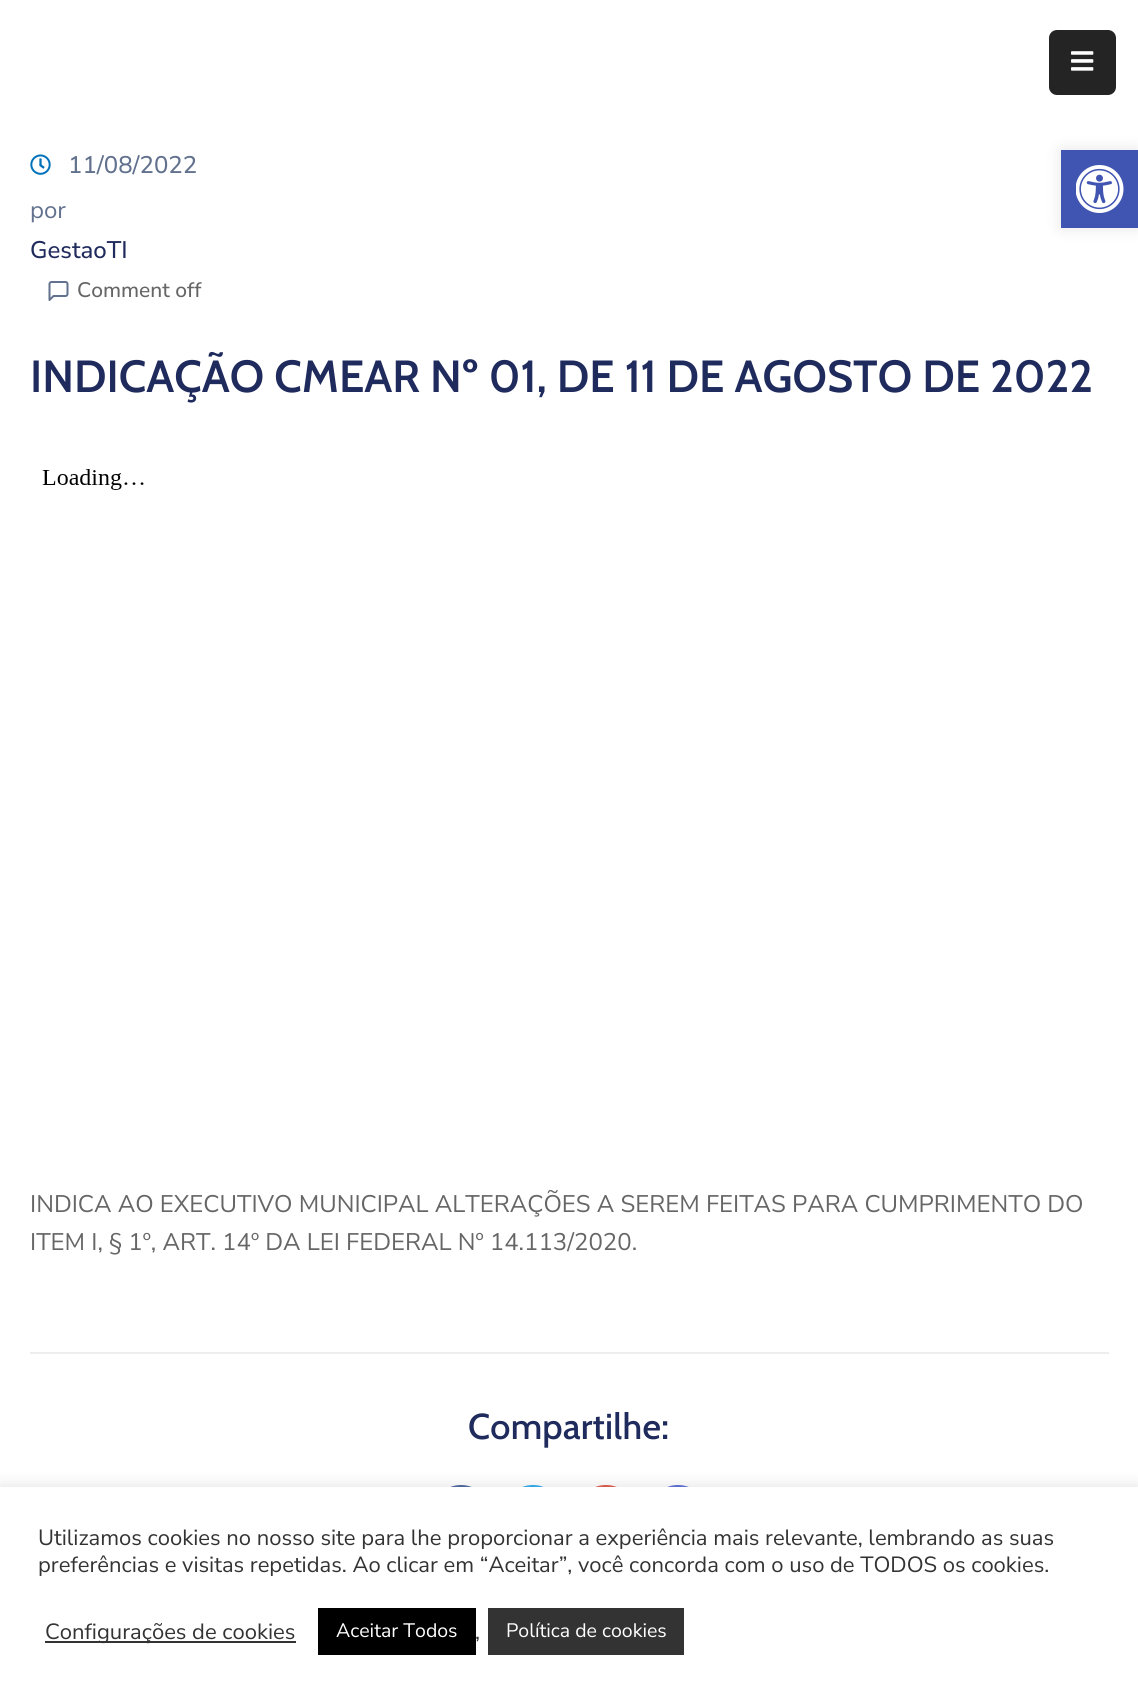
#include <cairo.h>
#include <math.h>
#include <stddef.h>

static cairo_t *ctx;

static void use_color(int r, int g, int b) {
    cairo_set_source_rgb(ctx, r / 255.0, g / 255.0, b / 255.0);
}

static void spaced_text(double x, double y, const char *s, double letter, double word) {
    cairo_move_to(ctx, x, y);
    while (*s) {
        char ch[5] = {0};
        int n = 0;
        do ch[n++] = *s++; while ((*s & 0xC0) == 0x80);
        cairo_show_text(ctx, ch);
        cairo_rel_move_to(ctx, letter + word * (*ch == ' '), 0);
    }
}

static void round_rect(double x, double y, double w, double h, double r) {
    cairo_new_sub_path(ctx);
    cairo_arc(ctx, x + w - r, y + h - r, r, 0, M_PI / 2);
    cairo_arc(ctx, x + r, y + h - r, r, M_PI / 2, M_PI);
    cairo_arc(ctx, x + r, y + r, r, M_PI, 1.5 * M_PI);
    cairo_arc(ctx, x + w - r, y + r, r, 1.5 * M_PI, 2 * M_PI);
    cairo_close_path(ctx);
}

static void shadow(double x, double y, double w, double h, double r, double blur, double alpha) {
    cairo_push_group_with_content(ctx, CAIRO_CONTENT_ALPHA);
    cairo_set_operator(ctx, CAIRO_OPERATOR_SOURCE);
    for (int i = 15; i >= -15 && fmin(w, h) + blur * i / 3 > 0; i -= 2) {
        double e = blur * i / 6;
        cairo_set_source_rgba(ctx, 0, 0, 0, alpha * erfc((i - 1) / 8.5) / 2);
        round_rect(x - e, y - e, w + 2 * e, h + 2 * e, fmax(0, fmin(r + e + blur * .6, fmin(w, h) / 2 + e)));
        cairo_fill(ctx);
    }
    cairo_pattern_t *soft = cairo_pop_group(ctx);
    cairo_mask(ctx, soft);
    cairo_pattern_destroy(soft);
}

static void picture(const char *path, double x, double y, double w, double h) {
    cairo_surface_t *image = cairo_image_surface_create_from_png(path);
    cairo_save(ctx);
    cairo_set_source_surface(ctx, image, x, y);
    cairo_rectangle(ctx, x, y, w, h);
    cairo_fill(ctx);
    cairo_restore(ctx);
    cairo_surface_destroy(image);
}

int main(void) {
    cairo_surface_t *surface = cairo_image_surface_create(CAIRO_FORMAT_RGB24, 1138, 1699);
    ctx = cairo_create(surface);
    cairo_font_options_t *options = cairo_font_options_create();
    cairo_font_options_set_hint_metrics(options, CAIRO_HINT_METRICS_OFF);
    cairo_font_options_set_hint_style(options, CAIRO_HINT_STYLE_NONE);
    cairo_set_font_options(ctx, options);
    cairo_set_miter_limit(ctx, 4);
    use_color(255, 255, 255);
    cairo_paint(ctx);
    use_color(0, 0, 0);
    shadow(1061, 150, 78, 78, 0, 7.5, 0.1);
    use_color(64, 84, 178);
    cairo_rectangle(ctx, 1061, 150, 77, 78);
    cairo_fill(ctx);
    picture("img1.png", 1076, 165, 48, 48);
    use_color(36, 36, 36);
    round_rect(1049, 30, 67, 65, 8);
    cairo_fill(ctx);
    picture("img2.png", 1071, 51, 23, 20);
    picture("img3.png", 30, 154, 21, 21);
    cairo_select_font_face(ctx, "Nunito Sans Medium", CAIRO_FONT_SLANT_NORMAL, CAIRO_FONT_WEIGHT_NORMAL);
    cairo_set_font_size(ctx, 24);
    use_color(98, 113, 141);
    cairo_move_to(ctx, 68, 173);
    cairo_show_text(ctx, "11/08/2022");
    cairo_select_font_face(ctx, "Nunito Sans", CAIRO_FONT_SLANT_NORMAL, CAIRO_FONT_WEIGHT_NORMAL);
    cairo_move_to(ctx, 30, 218);
    cairo_show_text(ctx, "por");
    cairo_select_font_face(ctx, "Nunito Sans Medium", CAIRO_FONT_SLANT_NORMAL, CAIRO_FONT_WEIGHT_NORMAL);
    use_color(32, 43, 93);
    cairo_move_to(ctx, 30, 258);
    cairo_show_text(ctx, "GestaoTI");
    picture("img4.png", 48, 281, 21, 20);
    cairo_set_font_size(ctx, 21);
    use_color(102, 102, 102);
    cairo_move_to(ctx, 77, 297);
    cairo_show_text(ctx, "Comment off");
    cairo_select_font_face(ctx, "Cabin SemiBold", CAIRO_FONT_SLANT_NORMAL, CAIRO_FONT_WEIGHT_NORMAL);
    cairo_set_font_size(ctx, 45);
    use_color(32, 43, 93);
    cairo_move_to(ctx, 30, 392);
    cairo_show_text(ctx, "INDICAÇÃO CMEAR Nº 01, DE 11 DE AGOSTO DE 2022");
    picture("img5.png", 42, 469, 102, 21);
    cairo_select_font_face(ctx, "Nunito Sans", CAIRO_FONT_SLANT_NORMAL, CAIRO_FONT_WEIGHT_NORMAL);
    cairo_set_font_size(ctx, 24);
    use_color(102, 102, 102);
    cairo_move_to(ctx, 30, 1212);
    cairo_show_text(ctx, "INDICA AO EXECUTIVO MUNICIPAL ALTERAÇÕES A SEREM FEITAS PARA CUMPRIMENTO DO");
    cairo_move_to(ctx, 30, 1250);
    cairo_show_text(ctx, "ITEM I, § 1º, ART. 14º DA LEI FEDERAL Nº 14.113/2020.");
    use_color(238, 238, 238);
    cairo_rectangle(ctx, 30, 1352, 1079, 2);
    cairo_fill(ctx);
    cairo_select_font_face(ctx, "Cabin Medium", CAIRO_FONT_SLANT_NORMAL, CAIRO_FONT_WEIGHT_NORMAL);
    cairo_set_font_size(ctx, 36);
    use_color(32, 43, 93);
    spaced_text(468, 1439, "Compartilhe:", 0.25, 0);
    use_color(59, 89, 152);
    cairo_new_path(ctx);
    cairo_arc(ctx, 461, 1515, 30, 0, 2 * M_PI);
    cairo_fill(ctx);
    use_color(24, 166, 240);
    cairo_arc(ctx, 533, 1515, 30, 0, 2 * M_PI);
    cairo_fill(ctx);
    use_color(221, 75, 57);
    cairo_arc(ctx, 606, 1515, 30, 0, 2 * M_PI);
    cairo_fill(ctx);
    use_color(76, 95, 215);
    cairo_arc(ctx, 678, 1515, 30, 0, 2 * M_PI);
    cairo_fill(ctx);
    use_color(172, 171, 171);
    shadow(0, 1485, 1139, 213, 0, 7.5, 0.3);
    use_color(255, 255, 255);
    cairo_rectangle(ctx, 0, 1487, 1138, 212);
    cairo_fill(ctx);
    cairo_select_font_face(ctx, "Nunito Sans", CAIRO_FONT_SLANT_NORMAL, CAIRO_FONT_WEIGHT_NORMAL);
    cairo_set_font_size(ctx, 22);
    use_color(51, 51, 51);
    cairo_move_to(ctx, 38, 1545);
    cairo_show_text(ctx, "Utilizamos cookies no nosso site para lhe proporcionar a experiência mais relevante, lembrando as suas");
    cairo_move_to(ctx, 38, 1572);
    cairo_show_text(ctx, "preferências e visitas repetidas. Ao clicar em “Aceitar”, você concorda com o uso de TODOS os cookies.");
    cairo_rectangle(ctx, 45, 1641, 251, 2);
    cairo_fill(ctx);
    cairo_move_to(ctx, 45, 1639);
    cairo_show_text(ctx, "Configurações de cookies");
    use_color(0, 0, 0);
    cairo_rectangle(ctx, 318, 1608, 158, 47);
    cairo_fill(ctx);
    cairo_set_font_size(ctx, 19.5);
    use_color(255, 255, 255);
    cairo_move_to(ctx, 336, 1637);
    cairo_show_text(ctx, "Aceitar Todos");
    use_color(51, 51, 51);
    cairo_rectangle(ctx, 488, 1608, 196, 47);
    cairo_fill(ctx);
    use_color(255, 255, 255);
    cairo_move_to(ctx, 506, 1637);
    cairo_show_text(ctx, "Política de cookies");
    cairo_set_font_size(ctx, 22);
    use_color(51, 51, 51);
    cairo_move_to(ctx, 475, 1639);
    cairo_show_text(ctx, ",");
    cairo_surface_write_to_png(surface, "result.png");
    cairo_font_options_destroy(options);
    cairo_destroy(ctx);
    cairo_surface_destroy(surface);
    return 0;
}
